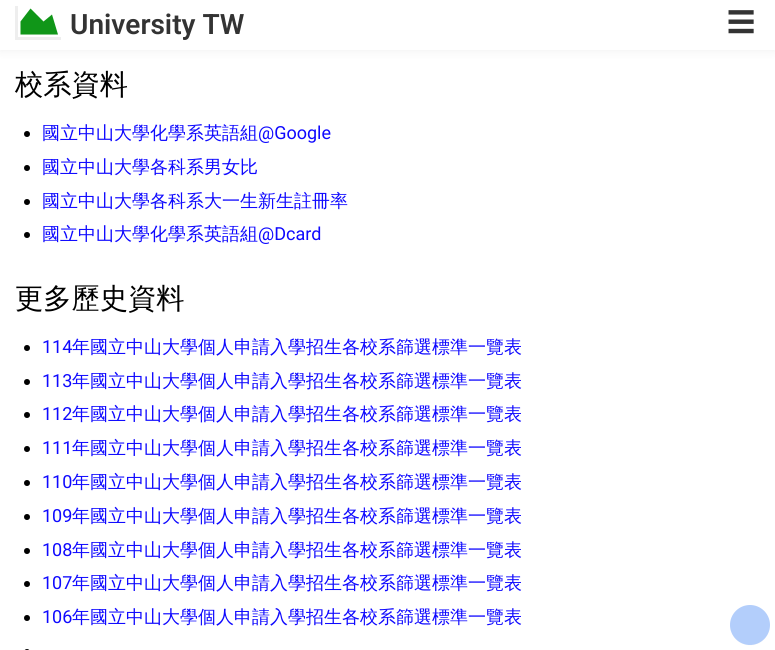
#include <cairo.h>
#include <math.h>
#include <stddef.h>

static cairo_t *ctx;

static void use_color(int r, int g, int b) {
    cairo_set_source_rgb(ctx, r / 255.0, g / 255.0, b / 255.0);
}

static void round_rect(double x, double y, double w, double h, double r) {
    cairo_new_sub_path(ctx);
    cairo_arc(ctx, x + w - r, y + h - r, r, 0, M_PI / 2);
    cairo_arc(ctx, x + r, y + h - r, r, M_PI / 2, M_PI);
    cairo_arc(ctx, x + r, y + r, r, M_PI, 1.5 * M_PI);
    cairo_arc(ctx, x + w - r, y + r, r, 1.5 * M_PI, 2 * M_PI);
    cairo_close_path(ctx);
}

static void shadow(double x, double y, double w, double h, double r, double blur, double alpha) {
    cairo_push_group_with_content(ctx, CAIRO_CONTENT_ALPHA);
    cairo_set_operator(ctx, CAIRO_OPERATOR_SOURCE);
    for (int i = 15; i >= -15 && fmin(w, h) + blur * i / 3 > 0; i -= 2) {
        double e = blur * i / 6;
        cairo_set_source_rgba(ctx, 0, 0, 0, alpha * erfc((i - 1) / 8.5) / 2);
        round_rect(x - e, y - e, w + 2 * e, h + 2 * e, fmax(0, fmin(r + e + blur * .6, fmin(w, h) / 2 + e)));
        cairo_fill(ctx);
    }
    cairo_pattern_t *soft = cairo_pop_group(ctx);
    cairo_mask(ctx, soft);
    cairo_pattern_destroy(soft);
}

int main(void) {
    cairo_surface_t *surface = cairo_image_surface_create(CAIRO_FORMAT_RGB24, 775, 650);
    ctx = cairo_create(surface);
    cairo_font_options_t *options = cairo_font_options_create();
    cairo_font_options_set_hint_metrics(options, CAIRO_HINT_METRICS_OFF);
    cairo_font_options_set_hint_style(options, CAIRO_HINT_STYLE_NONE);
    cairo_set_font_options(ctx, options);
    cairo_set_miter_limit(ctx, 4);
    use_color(255, 255, 255);
    cairo_paint(ctx);
    use_color(0, 0, 0);
    shadow(0, 2, 775, 50, 0, 4.5, 0.05);
    use_color(255, 255, 255);
    cairo_rectangle(ctx, 0, 0, 775, 50);
    cairo_fill(ctx);
    use_color(238, 238, 238);
    cairo_new_path(ctx);
    cairo_move_to(ctx, 61, 37);
    cairo_line_to(ctx, 61, 40);
    cairo_line_to(ctx, 15, 40);
    cairo_line_to(ctx, 15, 6);
    cairo_line_to(ctx, 18, 6);
    cairo_line_to(ctx, 18, 37);
    cairo_close_path(ctx);
    cairo_fill(ctx);
    use_color(16, 150, 24);
    cairo_new_path(ctx);
    cairo_move_to(ctx, 52, 14.5);
    cairo_line_to(ctx, 58, 34.5);
    cairo_line_to(ctx, 20.5, 34.5);
    cairo_line_to(ctx, 20.5, 21.5);
    cairo_line_to(ctx, 30.5, 8.5);
    cairo_line_to(ctx, 43.5, 21.5);
    cairo_close_path(ctx);
    cairo_fill(ctx);
    cairo_select_font_face(ctx, "Roboto SemiBold", CAIRO_FONT_SLANT_NORMAL, CAIRO_FONT_WEIGHT_NORMAL);
    cairo_set_font_size(ctx, 28);
    use_color(51, 51, 51);
    cairo_move_to(ctx, 70, 34);
    cairo_show_text(ctx, "University TW");
    cairo_select_font_face(ctx, "WenQuanYi Zen Hei Medium", CAIRO_FONT_SLANT_NORMAL, CAIRO_FONT_WEIGHT_NORMAL);
    cairo_move_to(ctx, 727, 32);
    cairo_show_text(ctx, "☰");
    cairo_set_font_size(ctx, 28.25);
    use_color(0, 0, 0);
    cairo_move_to(ctx, 15, 94);
    cairo_show_text(ctx, "校系資料");
    cairo_new_path(ctx);
    cairo_arc(ctx, 27, 134, 3, 0, 2 * M_PI);
    cairo_fill(ctx);
    cairo_set_font_size(ctx, 18);
    use_color(15, 9, 255);
    cairo_move_to(ctx, 42, 139);
    cairo_show_text(ctx, "國立中山大學化學系英語組");
    cairo_select_font_face(ctx, "Roboto", CAIRO_FONT_SLANT_NORMAL, CAIRO_FONT_WEIGHT_NORMAL);
    cairo_move_to(ctx, 258, 139);
    cairo_show_text(ctx, "@Google");
    use_color(0, 0, 0);
    cairo_new_path(ctx);
    cairo_arc(ctx, 27, 168, 3, 0, 2 * M_PI);
    cairo_fill(ctx);
    cairo_select_font_face(ctx, "WenQuanYi Zen Hei Medium", CAIRO_FONT_SLANT_NORMAL, CAIRO_FONT_WEIGHT_NORMAL);
    use_color(15, 9, 255);
    cairo_move_to(ctx, 42, 173);
    cairo_show_text(ctx, "國立中山大學各科系男女比");
    use_color(0, 0, 0);
    cairo_new_path(ctx);
    cairo_arc(ctx, 27, 202, 3, 0, 2 * M_PI);
    cairo_fill(ctx);
    use_color(15, 9, 255);
    cairo_move_to(ctx, 42, 207);
    cairo_show_text(ctx, "國立中山大學各科系大一生新生註冊率");
    use_color(0, 0, 0);
    cairo_new_path(ctx);
    cairo_arc(ctx, 27, 235, 3, 0, 2 * M_PI);
    cairo_fill(ctx);
    use_color(15, 9, 255);
    cairo_move_to(ctx, 42, 240);
    cairo_show_text(ctx, "國立中山大學化學系英語組");
    cairo_select_font_face(ctx, "Roboto", CAIRO_FONT_SLANT_NORMAL, CAIRO_FONT_WEIGHT_NORMAL);
    cairo_move_to(ctx, 258, 240);
    cairo_show_text(ctx, "@Dcard");
    cairo_select_font_face(ctx, "WenQuanYi Zen Hei Medium", CAIRO_FONT_SLANT_NORMAL, CAIRO_FONT_WEIGHT_NORMAL);
    cairo_set_font_size(ctx, 28.25);
    use_color(0, 0, 0);
    cairo_move_to(ctx, 15, 308);
    cairo_show_text(ctx, "更多歷史資料");
    cairo_new_path(ctx);
    cairo_arc(ctx, 27, 348, 3, 0, 2 * M_PI);
    cairo_fill(ctx);
    cairo_select_font_face(ctx, "Roboto", CAIRO_FONT_SLANT_NORMAL, CAIRO_FONT_WEIGHT_NORMAL);
    cairo_set_font_size(ctx, 18);
    use_color(15, 9, 255);
    cairo_move_to(ctx, 42, 353);
    cairo_show_text(ctx, "114");
    cairo_select_font_face(ctx, "WenQuanYi Zen Hei Medium", CAIRO_FONT_SLANT_NORMAL, CAIRO_FONT_WEIGHT_NORMAL);
    cairo_move_to(ctx, 72, 353);
    cairo_show_text(ctx, "年國立中山大學個人申請入學招生各校系篩選標準一覽表");
    use_color(0, 0, 0);
    cairo_new_path(ctx);
    cairo_arc(ctx, 27, 382, 3, 0, 2 * M_PI);
    cairo_fill(ctx);
    cairo_select_font_face(ctx, "Roboto", CAIRO_FONT_SLANT_NORMAL, CAIRO_FONT_WEIGHT_NORMAL);
    use_color(15, 9, 255);
    cairo_move_to(ctx, 42, 387);
    cairo_show_text(ctx, "113");
    cairo_select_font_face(ctx, "WenQuanYi Zen Hei Medium", CAIRO_FONT_SLANT_NORMAL, CAIRO_FONT_WEIGHT_NORMAL);
    cairo_move_to(ctx, 72, 387);
    cairo_show_text(ctx, "年國立中山大學個人申請入學招生各校系篩選標準一覽表");
    use_color(0, 0, 0);
    cairo_new_path(ctx);
    cairo_arc(ctx, 27, 415, 3, 0, 2 * M_PI);
    cairo_fill(ctx);
    cairo_select_font_face(ctx, "Roboto", CAIRO_FONT_SLANT_NORMAL, CAIRO_FONT_WEIGHT_NORMAL);
    use_color(15, 9, 255);
    cairo_move_to(ctx, 42, 420);
    cairo_show_text(ctx, "112");
    cairo_select_font_face(ctx, "WenQuanYi Zen Hei Medium", CAIRO_FONT_SLANT_NORMAL, CAIRO_FONT_WEIGHT_NORMAL);
    cairo_move_to(ctx, 72, 420);
    cairo_show_text(ctx, "年國立中山大學個人申請入學招生各校系篩選標準一覽表");
    use_color(0, 0, 0);
    cairo_new_path(ctx);
    cairo_arc(ctx, 27, 449, 3, 0, 2 * M_PI);
    cairo_fill(ctx);
    cairo_select_font_face(ctx, "Roboto", CAIRO_FONT_SLANT_NORMAL, CAIRO_FONT_WEIGHT_NORMAL);
    use_color(15, 9, 255);
    cairo_move_to(ctx, 42, 454);
    cairo_show_text(ctx, "111");
    cairo_select_font_face(ctx, "WenQuanYi Zen Hei Medium", CAIRO_FONT_SLANT_NORMAL, CAIRO_FONT_WEIGHT_NORMAL);
    cairo_move_to(ctx, 72, 454);
    cairo_show_text(ctx, "年國立中山大學個人申請入學招生各校系篩選標準一覽表");
    use_color(0, 0, 0);
    cairo_new_path(ctx);
    cairo_arc(ctx, 27, 483, 3, 0, 2 * M_PI);
    cairo_fill(ctx);
    cairo_select_font_face(ctx, "Roboto", CAIRO_FONT_SLANT_NORMAL, CAIRO_FONT_WEIGHT_NORMAL);
    use_color(15, 9, 255);
    cairo_move_to(ctx, 42, 488);
    cairo_show_text(ctx, "110");
    cairo_select_font_face(ctx, "WenQuanYi Zen Hei Medium", CAIRO_FONT_SLANT_NORMAL, CAIRO_FONT_WEIGHT_NORMAL);
    cairo_move_to(ctx, 72, 488);
    cairo_show_text(ctx, "年國立中山大學個人申請入學招生各校系篩選標準一覽表");
    use_color(0, 0, 0);
    cairo_new_path(ctx);
    cairo_arc(ctx, 27, 517, 3, 0, 2 * M_PI);
    cairo_fill(ctx);
    cairo_select_font_face(ctx, "Roboto", CAIRO_FONT_SLANT_NORMAL, CAIRO_FONT_WEIGHT_NORMAL);
    use_color(15, 9, 255);
    cairo_move_to(ctx, 42, 522);
    cairo_show_text(ctx, "109");
    cairo_select_font_face(ctx, "WenQuanYi Zen Hei Medium", CAIRO_FONT_SLANT_NORMAL, CAIRO_FONT_WEIGHT_NORMAL);
    cairo_move_to(ctx, 72, 522);
    cairo_show_text(ctx, "年國立中山大學個人申請入學招生各校系篩選標準一覽表");
    use_color(0, 0, 0);
    cairo_new_path(ctx);
    cairo_arc(ctx, 27, 551, 3, 0, 2 * M_PI);
    cairo_fill(ctx);
    cairo_select_font_face(ctx, "Roboto", CAIRO_FONT_SLANT_NORMAL, CAIRO_FONT_WEIGHT_NORMAL);
    use_color(15, 9, 255);
    cairo_move_to(ctx, 42, 556);
    cairo_show_text(ctx, "108");
    cairo_select_font_face(ctx, "WenQuanYi Zen Hei Medium", CAIRO_FONT_SLANT_NORMAL, CAIRO_FONT_WEIGHT_NORMAL);
    cairo_move_to(ctx, 72, 556);
    cairo_show_text(ctx, "年國立中山大學個人申請入學招生各校系篩選標準一覽表");
    use_color(0, 0, 0);
    cairo_new_path(ctx);
    cairo_arc(ctx, 27, 584, 3, 0, 2 * M_PI);
    cairo_fill(ctx);
    cairo_select_font_face(ctx, "Roboto", CAIRO_FONT_SLANT_NORMAL, CAIRO_FONT_WEIGHT_NORMAL);
    use_color(15, 9, 255);
    cairo_move_to(ctx, 42, 589);
    cairo_show_text(ctx, "107");
    cairo_select_font_face(ctx, "WenQuanYi Zen Hei Medium", CAIRO_FONT_SLANT_NORMAL, CAIRO_FONT_WEIGHT_NORMAL);
    cairo_move_to(ctx, 72, 589);
    cairo_show_text(ctx, "年國立中山大學個人申請入學招生各校系篩選標準一覽表");
    use_color(0, 0, 0);
    cairo_new_path(ctx);
    cairo_arc(ctx, 27, 618, 3, 0, 2 * M_PI);
    cairo_fill(ctx);
    cairo_select_font_face(ctx, "Roboto", CAIRO_FONT_SLANT_NORMAL, CAIRO_FONT_WEIGHT_NORMAL);
    use_color(15, 9, 255);
    cairo_move_to(ctx, 42, 623);
    cairo_show_text(ctx, "106");
    cairo_select_font_face(ctx, "WenQuanYi Zen Hei Medium", CAIRO_FONT_SLANT_NORMAL, CAIRO_FONT_WEIGHT_NORMAL);
    cairo_move_to(ctx, 72, 623);
    cairo_show_text(ctx, "年國立中山大學個人申請入學招生各校系篩選標準一覽表");
    use_color(0, 0, 0);
    round_rect(24, 649, 6, 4, 3);
    cairo_fill(ctx);
    use_color(179, 179, 179);
    shadow(731, 607, 38, 38, 19, 0.5, 0.14);
    use_color(179, 206, 251);
    cairo_arc(ctx, 750, 625, 20, 0, 2 * M_PI);
    cairo_fill(ctx);
    cairo_surface_write_to_png(surface, "result.png");
    cairo_font_options_destroy(options);
    cairo_destroy(ctx);
    cairo_surface_destroy(surface);
    return 0;
}
